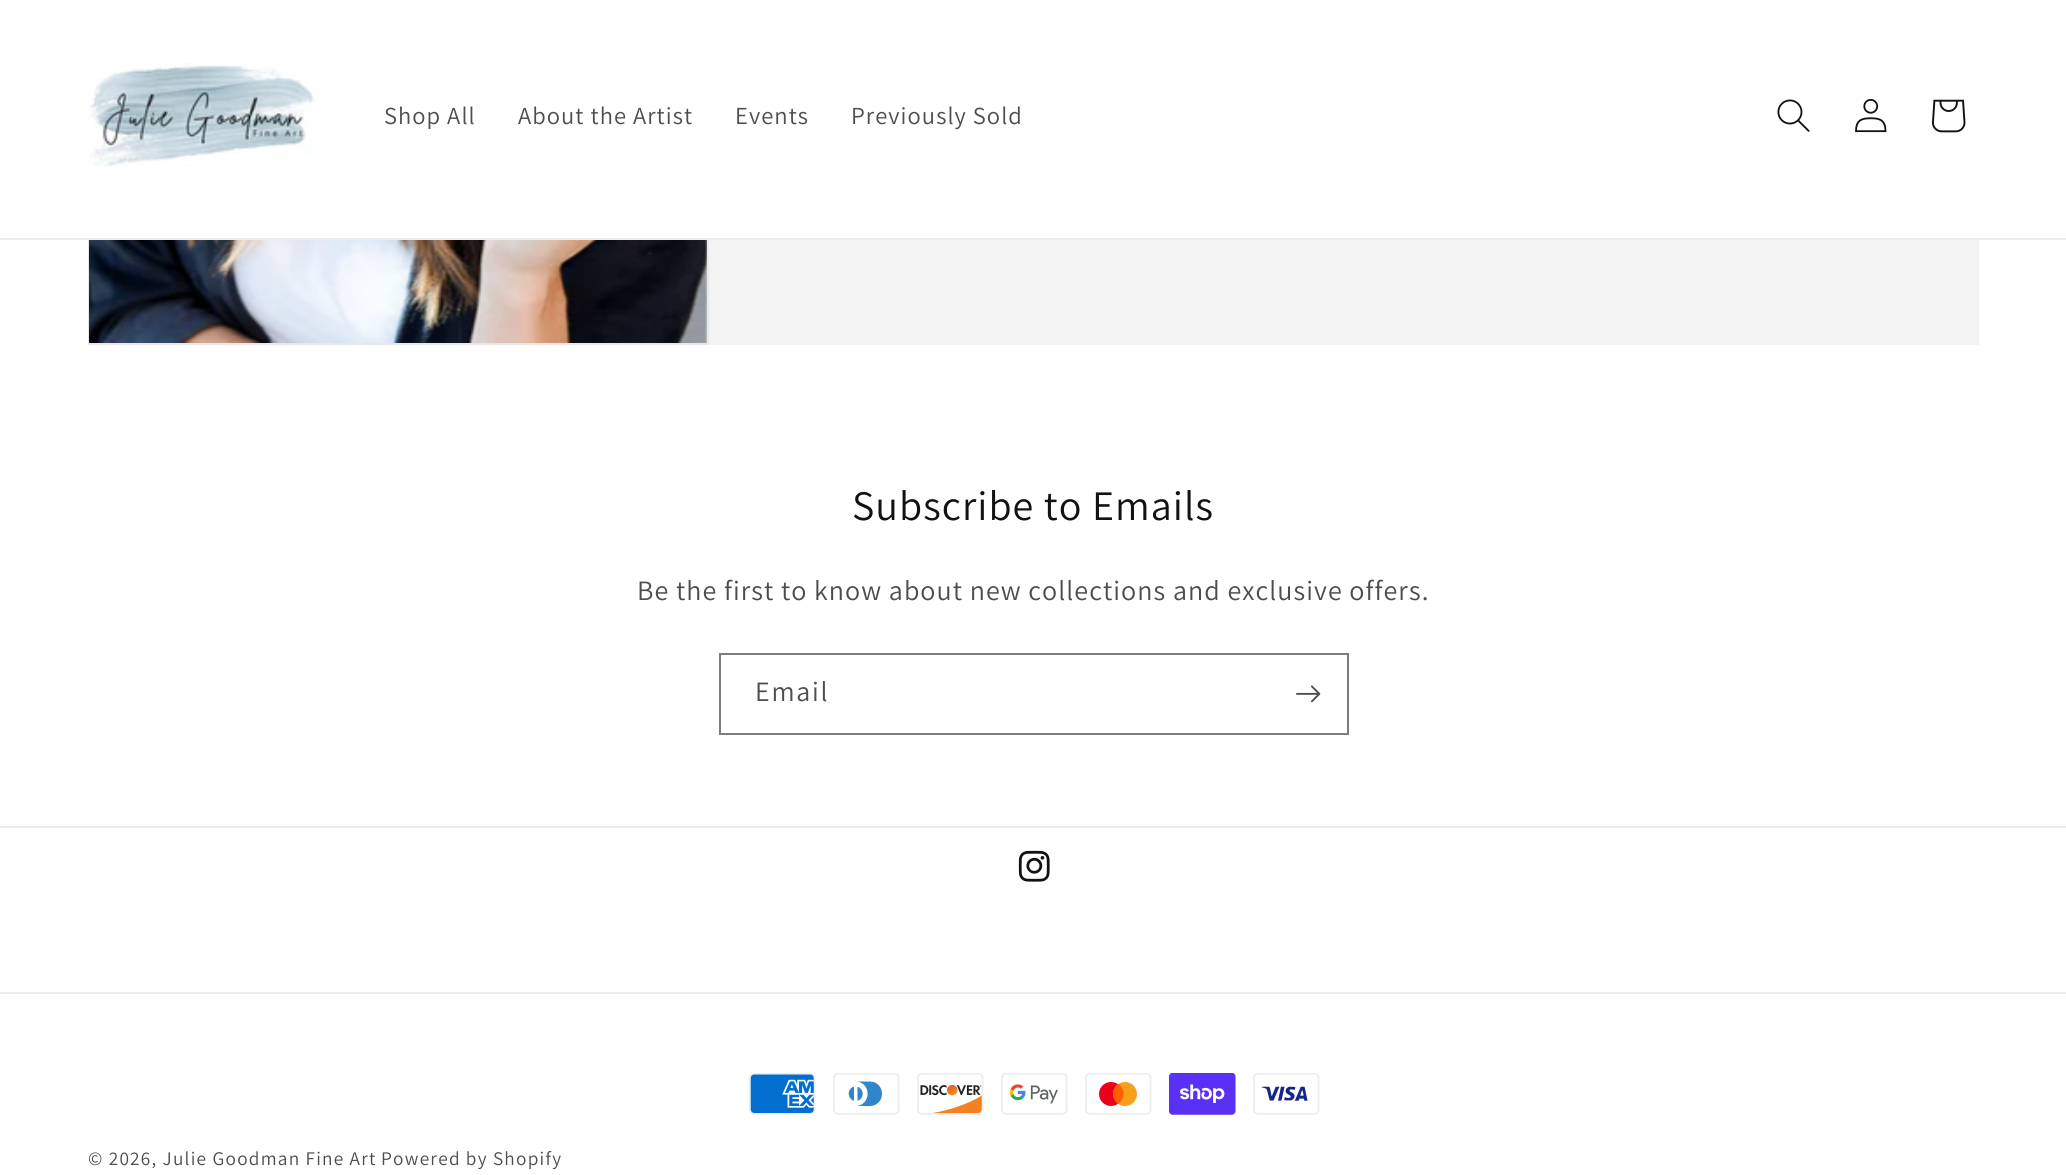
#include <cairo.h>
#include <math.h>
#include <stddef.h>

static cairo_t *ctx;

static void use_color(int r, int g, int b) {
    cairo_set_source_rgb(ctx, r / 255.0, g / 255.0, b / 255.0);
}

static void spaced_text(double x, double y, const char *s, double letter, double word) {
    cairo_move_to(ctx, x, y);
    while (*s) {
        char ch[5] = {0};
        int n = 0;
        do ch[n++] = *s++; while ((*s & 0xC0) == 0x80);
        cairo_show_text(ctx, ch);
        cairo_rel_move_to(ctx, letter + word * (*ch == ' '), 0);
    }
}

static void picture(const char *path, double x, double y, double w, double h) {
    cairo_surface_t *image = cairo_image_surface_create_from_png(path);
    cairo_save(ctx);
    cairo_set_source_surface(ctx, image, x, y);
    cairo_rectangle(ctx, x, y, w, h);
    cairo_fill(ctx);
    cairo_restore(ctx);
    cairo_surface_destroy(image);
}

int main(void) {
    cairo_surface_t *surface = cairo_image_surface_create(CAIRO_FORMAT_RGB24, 2066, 1175);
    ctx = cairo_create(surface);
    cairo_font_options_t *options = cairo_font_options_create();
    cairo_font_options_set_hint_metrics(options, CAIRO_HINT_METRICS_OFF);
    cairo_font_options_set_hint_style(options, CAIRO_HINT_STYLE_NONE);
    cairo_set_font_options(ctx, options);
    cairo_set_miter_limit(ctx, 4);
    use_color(255, 255, 255);
    cairo_paint(ctx);
    cairo_rectangle(ctx, 89, -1, 619, 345);
    use_color(232, 232, 232);
    cairo_stroke(ctx);
    picture("img1.png", 89, 240, 618, 103);
    use_color(243, 243, 243);
    cairo_rectangle(ctx, 709, 240, 1270, 105);
    cairo_fill(ctx);
    use_color(255, 255, 255);
    cairo_rectangle(ctx, 88, 0, 621, 238);
    cairo_fill(ctx);
    use_color(236, 236, 236);
    cairo_rectangle(ctx, 0, 238, 2066, 2);
    cairo_fill(ctx);
    picture("img2.png", 87, 63, 228, 104);
    cairo_select_font_face(ctx, "Assistant", CAIRO_FONT_SLANT_NORMAL, CAIRO_FONT_WEIGHT_NORMAL);
    cairo_set_font_size(ctx, 24.5);
    use_color(77, 77, 77);
    spaced_text(384, 124, "Shop All", 1.05, 0);
    spaced_text(518, 124, "About the Artist", 1.05, 0);
    spaced_text(735, 124, "Events", 1.05, 0);
    spaced_text(851, 124, "Previously Sold", 1.05, 0);
    picture("img3.png", 1777, 99, 33, 33);
    picture("img4.png", 1855, 98, 32, 35);
    picture("img5.png", 1932, 99, 34, 34);
    cairo_set_font_size(ctx, 42);
    use_color(18, 18, 18);
    spaced_text(852, 520, "Subscribe to Emails", 1.05, 0);
    cairo_set_font_size(ctx, 28);
    use_color(77, 77, 77);
    spaced_text(637, 600, "Be the first to know about new collections and exclusive offers.", 1.05, 0);
    cairo_rectangle(ctx, 720, 654, 628, 80);
    use_color(125, 125, 125);
    cairo_stroke(ctx);
    use_color(77, 77, 77);
    spaced_text(755, 701, "Email", 1.75, 0);
    picture("img6.png", 1296, 685, 25, 18);
    use_color(236, 236, 236);
    cairo_rectangle(ctx, 0, 826, 2066, 2);
    cairo_fill(ctx);
    picture("img7.png", 1018, 850, 32, 32);
    cairo_rectangle(ctx, 0, 992, 2066, 2);
    cairo_fill(ctx);
    picture("img8.png", 749, 1073, 67, 42);
    picture("img9.png", 833, 1073, 67, 42);
    picture("img10.png", 917, 1073, 67, 42);
    picture("img11.png", 1001, 1073, 67, 42);
    picture("img12.png", 1085, 1073, 67, 42);
    picture("img13.png", 1169, 1073, 67, 42);
    picture("img14.png", 1253, 1073, 67, 42);
    cairo_set_font_size(ctx, 19.25);
    use_color(77, 77, 77);
    spaced_text(88, 1165, "© 2026, Julie Goodman Fine Art", 1.25, 0);
    spaced_text(381, 1165, "Powered by Shopify", 1.25, 0);
    cairo_surface_write_to_png(surface, "result.png");
    cairo_font_options_destroy(options);
    cairo_destroy(ctx);
    cairo_surface_destroy(surface);
    return 0;
}
